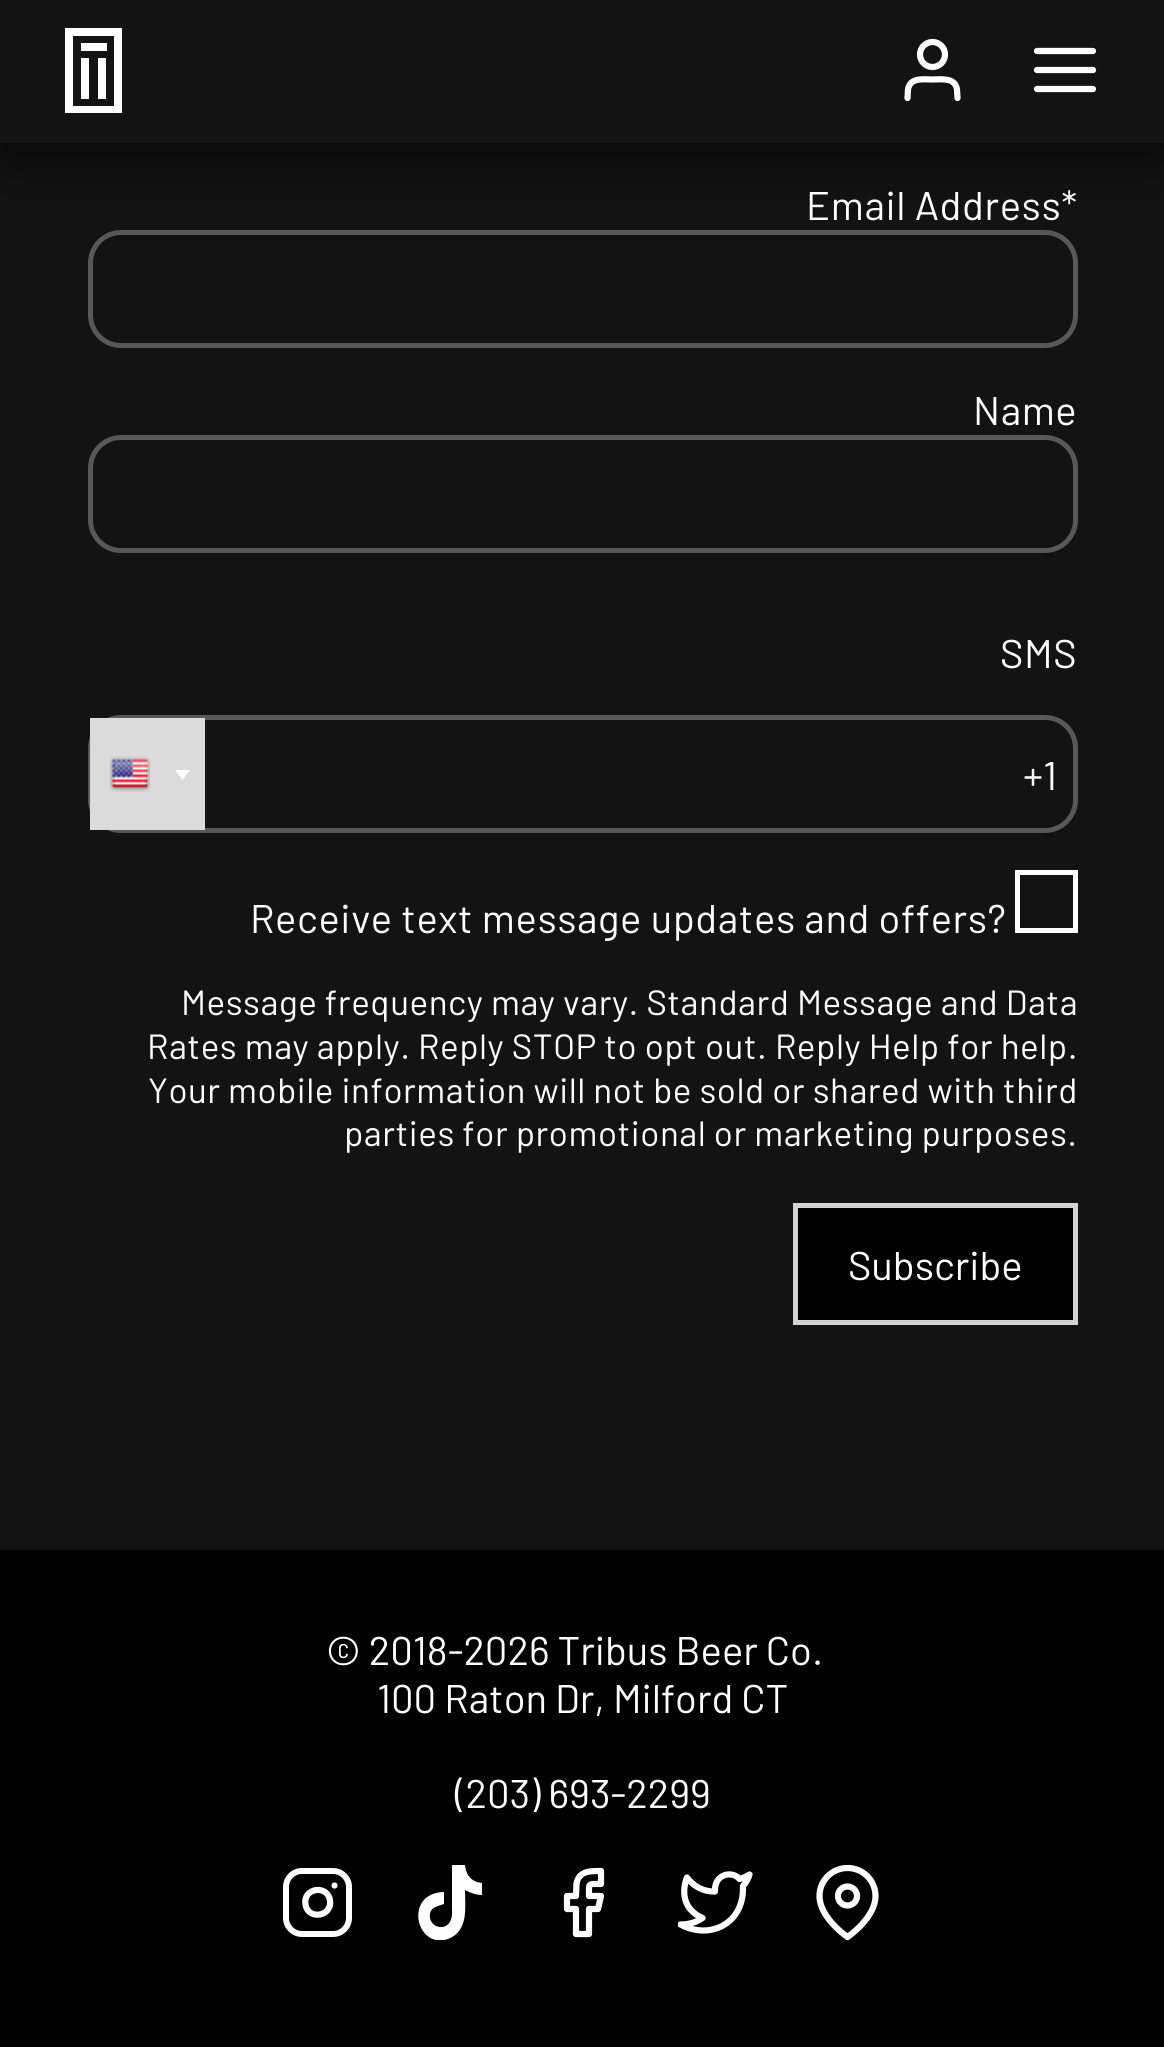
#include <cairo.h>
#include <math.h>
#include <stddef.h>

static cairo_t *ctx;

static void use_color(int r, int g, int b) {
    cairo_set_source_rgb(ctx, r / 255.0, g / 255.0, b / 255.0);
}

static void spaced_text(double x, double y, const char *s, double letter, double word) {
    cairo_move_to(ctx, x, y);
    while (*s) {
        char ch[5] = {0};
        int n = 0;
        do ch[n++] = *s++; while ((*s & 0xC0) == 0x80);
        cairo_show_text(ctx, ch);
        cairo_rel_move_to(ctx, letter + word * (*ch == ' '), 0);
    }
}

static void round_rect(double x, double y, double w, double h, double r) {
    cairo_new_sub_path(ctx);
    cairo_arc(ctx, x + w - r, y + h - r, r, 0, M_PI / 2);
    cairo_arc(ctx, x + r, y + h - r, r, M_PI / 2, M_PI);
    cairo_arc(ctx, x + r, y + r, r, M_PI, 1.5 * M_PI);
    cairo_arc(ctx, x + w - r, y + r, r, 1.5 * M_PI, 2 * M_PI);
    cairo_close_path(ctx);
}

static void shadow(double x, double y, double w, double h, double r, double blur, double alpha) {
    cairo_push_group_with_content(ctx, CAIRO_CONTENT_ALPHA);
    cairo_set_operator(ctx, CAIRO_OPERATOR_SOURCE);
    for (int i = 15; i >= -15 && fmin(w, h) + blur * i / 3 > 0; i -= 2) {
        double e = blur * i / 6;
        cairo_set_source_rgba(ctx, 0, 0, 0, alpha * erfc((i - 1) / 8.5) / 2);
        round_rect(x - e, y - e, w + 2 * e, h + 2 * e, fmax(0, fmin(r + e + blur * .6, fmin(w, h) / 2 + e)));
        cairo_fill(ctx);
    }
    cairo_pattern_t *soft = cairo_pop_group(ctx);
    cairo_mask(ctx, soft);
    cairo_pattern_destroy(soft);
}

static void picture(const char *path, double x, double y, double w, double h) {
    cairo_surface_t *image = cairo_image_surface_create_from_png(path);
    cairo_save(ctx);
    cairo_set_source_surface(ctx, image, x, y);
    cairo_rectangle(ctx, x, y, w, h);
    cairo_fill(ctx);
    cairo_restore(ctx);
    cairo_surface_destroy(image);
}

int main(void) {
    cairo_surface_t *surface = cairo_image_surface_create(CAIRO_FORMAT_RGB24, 1164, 2047);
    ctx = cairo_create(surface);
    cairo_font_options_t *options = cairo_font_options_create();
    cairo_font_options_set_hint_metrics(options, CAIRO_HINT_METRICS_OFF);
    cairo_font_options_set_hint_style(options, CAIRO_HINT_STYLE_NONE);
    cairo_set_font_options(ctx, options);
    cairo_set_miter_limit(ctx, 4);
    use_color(19, 19, 19);
    cairo_paint(ctx);
    round_rect(90.5, 232.5, 985, 113, 30.5);
    use_color(88, 88, 88);
    cairo_set_line_width(ctx, 5);
    cairo_stroke(ctx);
    use_color(0, 0, 0);
    shadow(0, -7, 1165, 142, 0, 41, 1);
    use_color(19, 19, 19);
    cairo_rectangle(ctx, 0, 0, 1164, 143);
    cairo_fill(ctx);
    use_color(255, 255, 255);
    cairo_rectangle(ctx, 98, 58, 8, 41);
    cairo_fill(ctx);
    cairo_rectangle(ctx, 81, 58, 8, 41);
    cairo_fill(ctx);
    cairo_rectangle(ctx, 81, 43, 26, 8);
    cairo_fill(ctx);
    cairo_save(ctx);
    cairo_rectangle(ctx, 65, 28, 58, 85);
    cairo_clip(ctx);
    cairo_new_path(ctx);
    cairo_move_to(ctx, 122, 114);
    cairo_line_to(ctx, 65, 114);
    cairo_line_to(ctx, 65, 28);
    cairo_line_to(ctx, 122, 28);
    cairo_close_path(ctx);
    cairo_move_to(ctx, 73, 106);
    cairo_line_to(ctx, 114, 106);
    cairo_line_to(ctx, 114, 36);
    cairo_line_to(ctx, 73, 36);
    cairo_close_path(ctx);
    cairo_fill(ctx);
    cairo_restore(ctx);
    cairo_arc(ctx, 932.5, 54.5, 12.5, 0, 2 * M_PI);
    cairo_set_line_width(ctx, 6.2);
    cairo_stroke(ctx);
    cairo_new_path(ctx);
    cairo_move_to(ctx, 957.5, 98);
    cairo_line_to(ctx, 957, 89.5);
    cairo_curve_to(ctx, 955, 77, 941.5, 79.5, 932.5, 79.5);
    cairo_curve_to(ctx, 923.5, 79.5, 910, 77, 908, 89.5);
    cairo_line_to(ctx, 907.5, 98);
    cairo_set_line_cap(ctx, CAIRO_LINE_CAP_ROUND);
    cairo_set_line_join(ctx, CAIRO_LINE_JOIN_ROUND);
    cairo_stroke(ctx);
    cairo_new_path(ctx);
    cairo_move_to(ctx, 1037, 51);
    cairo_line_to(ctx, 1093, 51);
    cairo_stroke(ctx);
    cairo_new_path(ctx);
    cairo_move_to(ctx, 1037, 70);
    cairo_line_to(ctx, 1093, 70);
    cairo_stroke(ctx);
    cairo_new_path(ctx);
    cairo_move_to(ctx, 1037, 89);
    cairo_line_to(ctx, 1093, 89);
    cairo_stroke(ctx);
    cairo_select_font_face(ctx, "Barlow", CAIRO_FONT_SLANT_NORMAL, CAIRO_FONT_WEIGHT_NORMAL);
    cairo_set_font_size(ctx, 40);
    spaced_text(806, 220, "Email Address*", 0.6, 0);
    spaced_text(973, 425, "Name", 0.6, 0);
    round_rect(90.5, 437.5, 985, 113, 30.5);
    use_color(88, 88, 88);
    cairo_set_line_width(ctx, 5);
    cairo_set_line_cap(ctx, CAIRO_LINE_CAP_BUTT);
    cairo_set_line_join(ctx, CAIRO_LINE_JOIN_MITER);
    cairo_stroke(ctx);
    use_color(255, 255, 255);
    spaced_text(1000, 668, "SMS", 0.6, 0);
    round_rect(90.5, 717.5, 985, 113, 30.5);
    use_color(88, 88, 88);
    cairo_stroke(ctx);
    use_color(219, 219, 219);
    cairo_rectangle(ctx, 90, 718, 115, 112);
    cairo_fill(ctx);
    picture("img1.png", 110, 756, 40, 36);
    use_color(255, 255, 255);
    cairo_new_path(ctx);
    cairo_move_to(ctx, 175, 770);
    cairo_line_to(ctx, 190, 770);
    cairo_line_to(ctx, 182.5, 780);
    cairo_close_path(ctx);
    cairo_fill(ctx);
    cairo_move_to(ctx, 1023, 790);
    cairo_show_text(ctx, "+1");
    spaced_text(250, 933, "Receive text message updates and offers?", 0.6, 0);
    cairo_rectangle(ctx, 1017.5, 872.5, 58, 58);
    cairo_stroke(ctx);
    cairo_set_font_size(ctx, 35);
    spaced_text(181, 1015, "Message frequency may vary. Standard Message and Data", 0.53, 0);
    spaced_text(147, 1059, "Rates may apply. Reply STOP to opt out. Reply Help for help.", 0.53, 0);
    spaced_text(148, 1103, "Your mobile information will not be sold or shared with third", 0.53, 0);
    spaced_text(344, 1146, "parties for promotional or marketing purposes.", 0.53, 0);
    use_color(0, 0, 0);
    cairo_rectangle(ctx, 795.5, 1205.5, 280, 117);
    cairo_fill_preserve(ctx);
    use_color(211, 211, 211);
    cairo_stroke(ctx);
    cairo_set_font_size(ctx, 40);
    use_color(255, 255, 255);
    cairo_move_to(ctx, 848, 1280);
    cairo_show_text(ctx, "Subscribe");
    use_color(0, 0, 0);
    cairo_rectangle(ctx, 0, 1550, 1164, 497);
    cairo_fill(ctx);
    use_color(255, 255, 255);
    cairo_move_to(ctx, 326, 1665);
    cairo_show_text(ctx, "© 2018-2026 Tribus Beer Co.");
    cairo_move_to(ctx, 377, 1713);
    cairo_show_text(ctx, "100 Raton Dr, Milford CT");
    cairo_move_to(ctx, 455, 1808);
    cairo_show_text(ctx, "(203) 693-2299");
    round_rect(286, 1871, 63, 63, 16);
    cairo_set_line_width(ctx, 6);
    cairo_stroke(ctx);
    cairo_new_path(ctx);
    cairo_move_to(ctx, 330, 1900.5);
    cairo_curve_to(ctx, 332.5, 1916.5, 308, 1920.5, 305.5, 1904.5);
    cairo_curve_to(ctx, 302.5, 1888, 327.5, 1884, 330, 1900.5);
    cairo_close_path(ctx);
    cairo_move_to(ctx, 334.5, 1885.5);
    cairo_line_to(ctx, 334.5, 1885.5);
    cairo_set_line_width(ctx, 6.2);
    cairo_set_line_cap(ctx, CAIRO_LINE_CAP_ROUND);
    cairo_set_line_join(ctx, CAIRO_LINE_JOIN_ROUND);
    cairo_stroke(ctx);
    cairo_save(ctx);
    cairo_rectangle(ctx, 413, 1865, 75, 75);
    cairo_clip(ctx);
    cairo_new_path(ctx);
    cairo_move_to(ctx, 465, 1865);
    cairo_curve_to(ctx, 466, 1876, 472, 1882, 482, 1883);
    cairo_line_to(ctx, 482, 1895);
    cairo_curve_to(ctx, 476, 1895, 471, 1893, 465, 1890);
    cairo_curve_to(ctx, 465, 1907, 469, 1931, 448, 1939);
    cairo_curve_to(ctx, 416, 1950, 403, 1893, 444, 1892);
    cairo_line_to(ctx, 444, 1904);
    cairo_line_to(ctx, 438, 1906);
    cairo_curve_to(ctx, 432, 1908, 429, 1911, 430, 1918);
    cairo_curve_to(ctx, 432, 1930, 454, 1933, 452, 1909);
    cairo_line_to(ctx, 452, 1865);
    cairo_close_path(ctx);
    cairo_fill(ctx);
    cairo_restore(ctx);
    cairo_new_path(ctx);
    cairo_move_to(ctx, 601, 1871);
    cairo_curve_to(ctx, 591, 1871, 579, 1870.5, 576.5, 1883.5);
    cairo_line_to(ctx, 576, 1896);
    cairo_line_to(ctx, 567, 1896);
    cairo_line_to(ctx, 567, 1909);
    cairo_line_to(ctx, 576, 1909);
    cairo_line_to(ctx, 576, 1934);
    cairo_line_to(ctx, 589, 1934);
    cairo_line_to(ctx, 589, 1909);
    cairo_line_to(ctx, 598, 1909);
    cairo_line_to(ctx, 601, 1896);
    cairo_line_to(ctx, 589, 1896);
    cairo_curve_to(ctx, 589, 1882.5, 587.5, 1884, 601, 1884);
    cairo_close_path(ctx);
    cairo_stroke(ctx);
    cairo_save(ctx);
    cairo_rectangle(ctx, 678, 1865, 75, 75);
    cairo_clip(ctx);
    cairo_new_path(ctx);
    cairo_move_to(ctx, 749.5, 1874.5);
    cairo_curve_to(ctx, 746.5, 1876.5, 743, 1878, 739.5, 1879);
    cairo_curve_to(ctx, 733, 1871.5, 720.5, 1873.5, 716.5, 1882.5);
    cairo_curve_to(ctx, 715, 1885.5, 715, 1888.5, 715, 1891.5);
    cairo_curve_to(ctx, 704, 1892, 693.5, 1886.5, 687, 1877.5);
    cairo_curve_to(ctx, 687, 1877.5, 674.5, 1905.5, 702.5, 1918);
    cairo_curve_to(ctx, 696, 1922.5, 688.5, 1924.5, 680.5, 1924.5);
    cairo_curve_to(ctx, 709, 1940, 743, 1924.5, 743, 1888.5);
    cairo_line_to(ctx, 743, 1886);
    cairo_curve_to(ctx, 746, 1882.5, 748.5, 1878.5, 749.5, 1874.5);
    cairo_close_path(ctx);
    cairo_stroke(ctx);
    cairo_restore(ctx);
    cairo_new_path(ctx);
    cairo_move_to(ctx, 875.5, 1896);
    cairo_curve_to(ctx, 875.5, 1918, 847.5, 1937, 847.5, 1937);
    cairo_curve_to(ctx, 847.5, 1937, 819.5, 1918, 819.5, 1896);
    cairo_curve_to(ctx, 819.5, 1880.5, 832, 1868, 847.5, 1868);
    cairo_curve_to(ctx, 863, 1868, 875.5, 1880.5, 875.5, 1896);
    cairo_close_path(ctx);
    cairo_stroke(ctx);
    cairo_arc(ctx, 847.5, 1896, 9.5, 0, 2 * M_PI);
    cairo_set_line_cap(ctx, CAIRO_LINE_CAP_BUTT);
    cairo_set_line_join(ctx, CAIRO_LINE_JOIN_MITER);
    cairo_stroke(ctx);
    cairo_surface_write_to_png(surface, "result.png");
    cairo_font_options_destroy(options);
    cairo_destroy(ctx);
    cairo_surface_destroy(surface);
    return 0;
}
